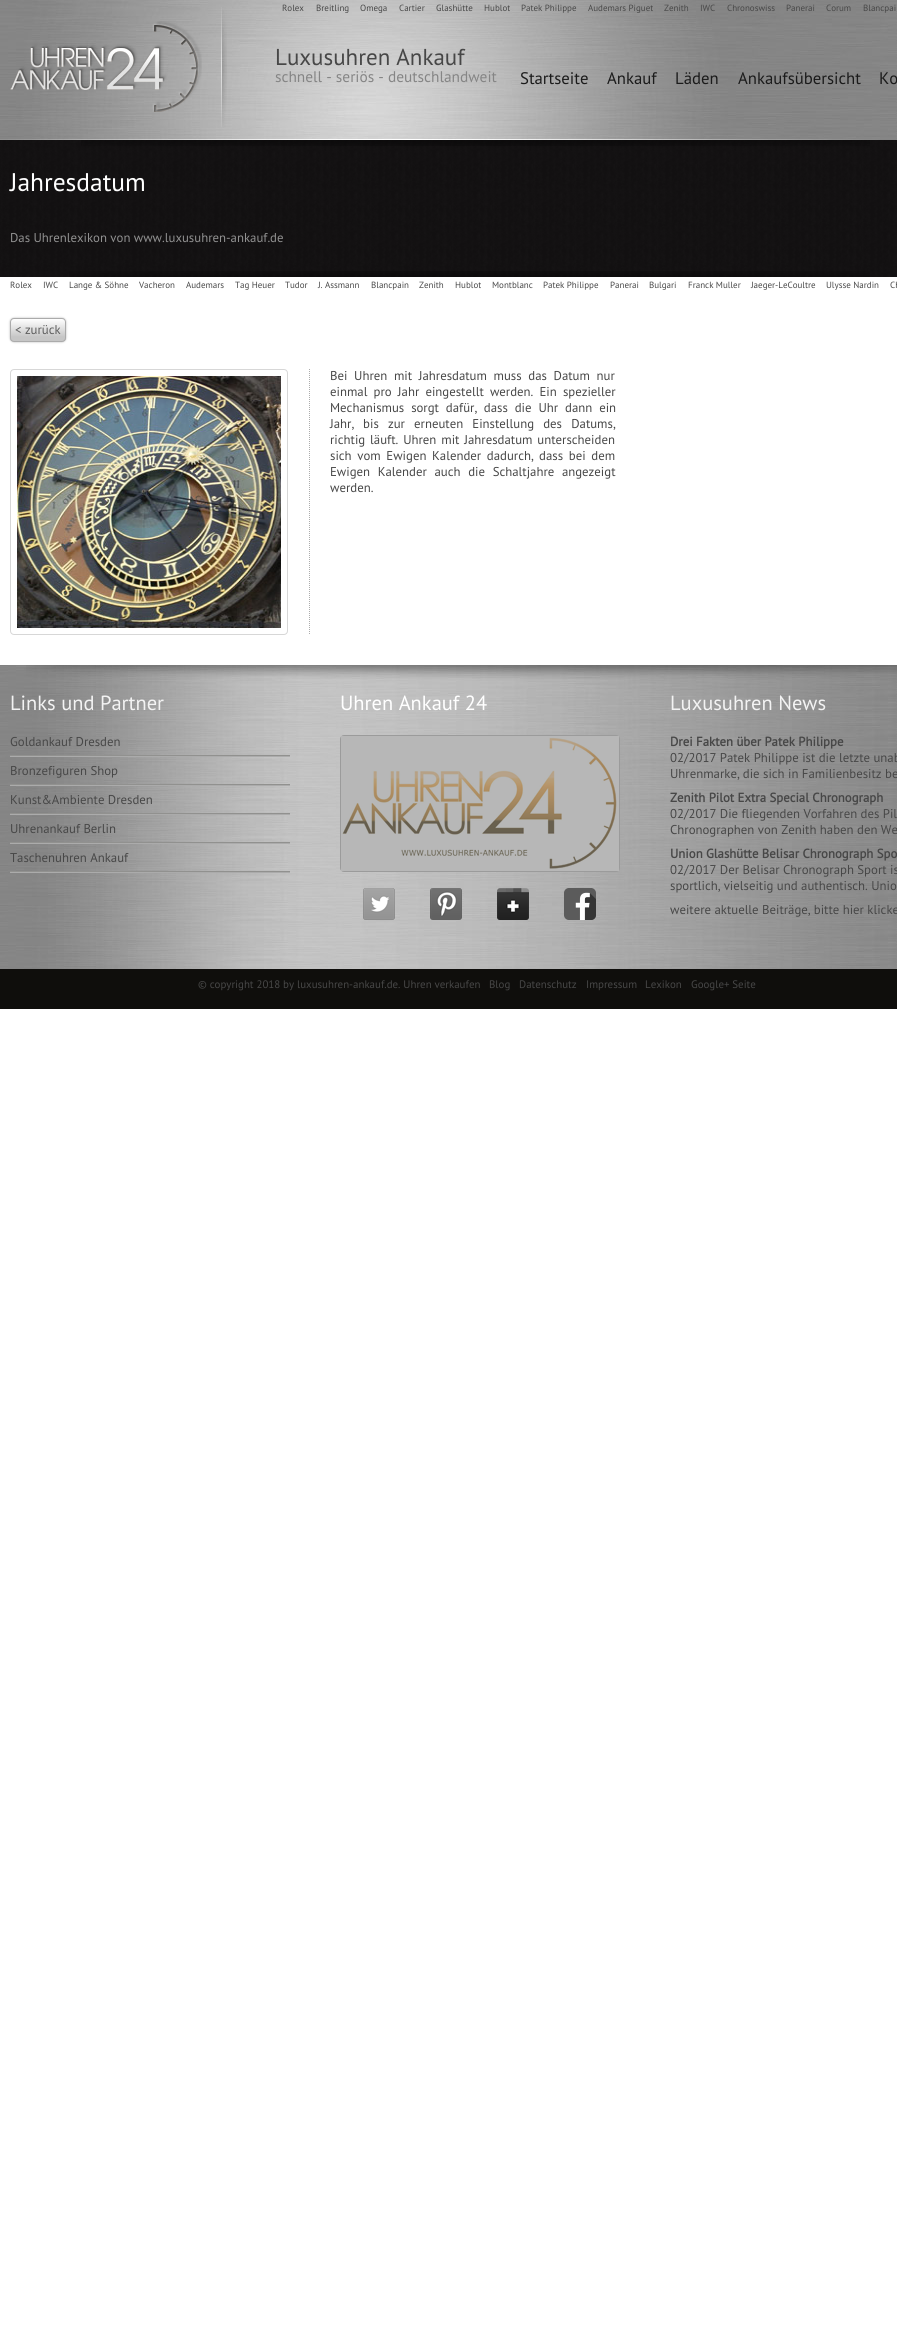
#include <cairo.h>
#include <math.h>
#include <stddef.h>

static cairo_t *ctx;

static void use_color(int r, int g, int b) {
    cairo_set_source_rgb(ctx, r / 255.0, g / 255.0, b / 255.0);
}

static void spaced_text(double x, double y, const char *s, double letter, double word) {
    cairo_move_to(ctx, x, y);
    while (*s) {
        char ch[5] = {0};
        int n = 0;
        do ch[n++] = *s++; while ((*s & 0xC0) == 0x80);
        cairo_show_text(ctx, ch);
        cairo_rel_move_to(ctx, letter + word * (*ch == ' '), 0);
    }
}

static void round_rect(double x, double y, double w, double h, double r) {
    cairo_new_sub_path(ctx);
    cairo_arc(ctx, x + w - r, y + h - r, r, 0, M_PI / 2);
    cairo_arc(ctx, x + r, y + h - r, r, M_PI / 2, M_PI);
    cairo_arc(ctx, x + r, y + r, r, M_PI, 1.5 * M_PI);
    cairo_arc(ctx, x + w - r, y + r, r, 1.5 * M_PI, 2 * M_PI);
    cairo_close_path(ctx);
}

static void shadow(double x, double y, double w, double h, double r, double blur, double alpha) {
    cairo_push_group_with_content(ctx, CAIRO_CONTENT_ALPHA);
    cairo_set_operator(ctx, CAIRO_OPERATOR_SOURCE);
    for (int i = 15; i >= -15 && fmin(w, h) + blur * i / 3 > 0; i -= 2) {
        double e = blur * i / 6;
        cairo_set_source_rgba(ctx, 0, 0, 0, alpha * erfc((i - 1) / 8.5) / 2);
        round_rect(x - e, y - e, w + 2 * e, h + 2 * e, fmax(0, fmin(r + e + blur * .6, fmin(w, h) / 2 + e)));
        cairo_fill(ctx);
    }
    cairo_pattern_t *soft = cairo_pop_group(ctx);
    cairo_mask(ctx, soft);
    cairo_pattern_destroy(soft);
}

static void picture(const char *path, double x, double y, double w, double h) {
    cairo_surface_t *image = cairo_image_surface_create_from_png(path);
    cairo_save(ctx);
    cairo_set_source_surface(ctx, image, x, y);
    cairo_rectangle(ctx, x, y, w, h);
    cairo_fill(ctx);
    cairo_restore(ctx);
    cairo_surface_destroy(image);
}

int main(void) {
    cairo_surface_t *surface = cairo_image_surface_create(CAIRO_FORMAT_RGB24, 897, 2331);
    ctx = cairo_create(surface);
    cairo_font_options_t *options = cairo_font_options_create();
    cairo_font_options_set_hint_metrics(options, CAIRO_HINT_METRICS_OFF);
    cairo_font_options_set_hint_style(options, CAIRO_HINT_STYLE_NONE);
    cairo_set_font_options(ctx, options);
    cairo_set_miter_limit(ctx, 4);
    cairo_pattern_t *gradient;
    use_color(255, 255, 255);
    cairo_paint(ctx);
    picture("img1.png", 0, 0, 897, 140);
    picture("img2.png", 10, 21, 192, 91);
    picture("img3.png", 221, 7, 6, 120);
    cairo_select_font_face(ctx, "PT Sans", CAIRO_FONT_SLANT_NORMAL, CAIRO_FONT_WEIGHT_NORMAL);
    cairo_set_font_size(ctx, 9);
    use_color(71, 71, 71);
    cairo_move_to(ctx, 282, 11);
    cairo_show_text(ctx, "Rolex");
    cairo_move_to(ctx, 316, 11);
    cairo_show_text(ctx, "Breitling");
    cairo_move_to(ctx, 360, 11);
    cairo_show_text(ctx, "Omega");
    cairo_move_to(ctx, 399, 11);
    cairo_show_text(ctx, "Cartier");
    cairo_move_to(ctx, 436, 11);
    cairo_show_text(ctx, "Glashütte");
    cairo_move_to(ctx, 484, 11);
    cairo_show_text(ctx, "Hublot");
    cairo_move_to(ctx, 521, 11);
    cairo_show_text(ctx, "Patek Philippe");
    cairo_move_to(ctx, 588, 11);
    cairo_show_text(ctx, "Audemars Piguet");
    cairo_move_to(ctx, 664, 11);
    cairo_show_text(ctx, "Zenith");
    cairo_move_to(ctx, 700, 11);
    cairo_show_text(ctx, "IWC");
    cairo_move_to(ctx, 727, 11);
    cairo_show_text(ctx, "Chronoswiss");
    cairo_move_to(ctx, 786, 11);
    cairo_show_text(ctx, "Panerai");
    cairo_move_to(ctx, 826, 11);
    cairo_show_text(ctx, "Corum");
    cairo_move_to(ctx, 863, 11);
    cairo_show_text(ctx, "Blancpai");
    cairo_set_font_size(ctx, 23);
    cairo_move_to(ctx, 275, 65);
    cairo_show_text(ctx, "Luxusuhren Ankauf");
    cairo_set_font_size(ctx, 15.4);
    use_color(133, 133, 133);
    cairo_move_to(ctx, 275, 82);
    cairo_show_text(ctx, "schnell - seriös - deutschlandweit");
    cairo_set_font_size(ctx, 16.75);
    use_color(27, 27, 27);
    cairo_move_to(ctx, 520, 84);
    cairo_show_text(ctx, "Startseite");
    cairo_move_to(ctx, 607, 84);
    cairo_show_text(ctx, "Ankauf");
    cairo_move_to(ctx, 675, 84);
    cairo_show_text(ctx, "Läden");
    cairo_move_to(ctx, 738, 84);
    cairo_show_text(ctx, "Ankaufsübersicht");
    cairo_move_to(ctx, 879, 84);
    cairo_show_text(ctx, "Ko");
    picture("img4.png", 0, 140, 897, 137);
    picture("img5.png", 81, 140, 789, 6);
    cairo_set_font_size(ctx, 25.5);
    use_color(255, 255, 255);
    cairo_move_to(ctx, 10, 191);
    cairo_show_text(ctx, "Jahresdatum");
    cairo_set_font_size(ctx, 12.8);
    use_color(145, 145, 145);
    cairo_move_to(ctx, 10, 242);
    cairo_show_text(ctx, "Das Uhrenlexikon von www.luxusuhren-ankauf.de");
    picture("img6.png", 69, 271, 801, 6);
    cairo_set_font_size(ctx, 9);
    use_color(71, 71, 71);
    cairo_move_to(ctx, 10, 288);
    cairo_show_text(ctx, "Rolex");
    cairo_move_to(ctx, 43, 288);
    cairo_show_text(ctx, "IWC");
    cairo_move_to(ctx, 69, 288);
    cairo_show_text(ctx, "Lange & Söhne");
    cairo_move_to(ctx, 139, 288);
    cairo_show_text(ctx, "Vacheron");
    cairo_move_to(ctx, 186, 288);
    cairo_show_text(ctx, "Audemars");
    cairo_move_to(ctx, 235, 288);
    cairo_show_text(ctx, "Tag Heuer");
    cairo_move_to(ctx, 285, 288);
    cairo_show_text(ctx, "Tudor");
    cairo_move_to(ctx, 318, 288);
    cairo_show_text(ctx, "J. Assmann");
    cairo_move_to(ctx, 371, 288);
    cairo_show_text(ctx, "Blancpain");
    cairo_move_to(ctx, 419, 288);
    cairo_show_text(ctx, "Zenith");
    cairo_move_to(ctx, 455, 288);
    cairo_show_text(ctx, "Hublot");
    cairo_move_to(ctx, 492, 288);
    cairo_show_text(ctx, "Montblanc");
    cairo_move_to(ctx, 543, 288);
    cairo_show_text(ctx, "Patek Philippe");
    cairo_move_to(ctx, 610, 288);
    cairo_show_text(ctx, "Panerai");
    cairo_move_to(ctx, 649, 288);
    cairo_show_text(ctx, "Bulgari");
    cairo_move_to(ctx, 688, 288);
    cairo_show_text(ctx, "Franck Muller");
    cairo_move_to(ctx, 751, 288);
    cairo_show_text(ctx, "Jaeger-LeCoultre");
    cairo_move_to(ctx, 826, 288);
    cairo_show_text(ctx, "Ulysse Nardin");
    cairo_move_to(ctx, 890, 288);
    cairo_show_text(ctx, "Ch");
    use_color(187, 187, 187);
    shadow(10, 318, 56, 24, 4, 1, 1);
    cairo_save(ctx);
    round_rect(10, 318, 56, 24, 4);
    cairo_clip(ctx);
    gradient = cairo_pattern_create_linear(11, 319, 11, 337);
    cairo_pattern_add_color_stop_rgba(gradient, 0, 1, 1, 1, 1);
    cairo_pattern_add_color_stop_rgba(gradient, 1, 0.776, 0.776, 0.776, 1);
    cairo_set_source(ctx, gradient);
    cairo_pattern_destroy(gradient);
    cairo_rectangle(ctx, 10, 319, 56, 22);
    cairo_fill(ctx);
    cairo_restore(ctx);
    round_rect(10.5, 318.5, 55, 23, 3.5);
    use_color(171, 171, 171);
    cairo_set_line_width(ctx, 1);
    cairo_stroke(ctx);
    cairo_set_font_size(ctx, 12.8);
    use_color(94, 94, 94);
    cairo_move_to(ctx, 15, 334);
    cairo_show_text(ctx, "< zurück");
    cairo_new_path(ctx);
    cairo_move_to(ctx, 309.5, 369);
    cairo_line_to(ctx, 309.5, 635);
    use_color(171, 171, 171);
    cairo_set_dash(ctx, (double[]){1, 1}, 2, 0);
    cairo_stroke(ctx);
    round_rect(10.5, 369.5, 277, 265, 3.5);
    use_color(215, 215, 215);
    cairo_set_dash(ctx, NULL, 0, 0);
    cairo_stroke(ctx);
    picture("img7.png", 17, 376, 264, 252);
    use_color(71, 71, 71);
    spaced_text(330, 380, "Bei Uhren mit Jahresdatum muss das Datum nur", 0, 3.25);
    spaced_text(330, 396, "einmal pro Jahr eingestellt werden. Ein spezieller", 0, 2.75);
    spaced_text(330, 412, "Mechanismus sorgt dafür, dass die Uhr dann ein", 0, 3.5);
    spaced_text(330, 428, "Jahr, bis zur erneuten Einstellung des Datums,", 0, 5.75);
    spaced_text(330, 444, "richtig läuft. Uhren mit Jahresdatum unterscheiden", 0, 1.5);
    spaced_text(330, 460, "sich vom Ewigen Kalender dadurch, dass bei dem", 0, 2.25);
    spaced_text(330, 476, "Ewigen Kalender auch die Schaltjahre angezeigt", 0, 4.25);
    cairo_move_to(ctx, 330, 492);
    cairo_show_text(ctx, "werden.");
    picture("img8.png", 0, 665, 897, 304);
    picture("img9.png", 26, 665, 871, 14);
    cairo_set_font_size(ctx, 20.5);
    use_color(243, 243, 243);
    cairo_move_to(ctx, 10, 710);
    cairo_show_text(ctx, "Links und Partner");
    use_color(171, 171, 171);
    cairo_rectangle(ctx, 10, 756, 280, 1);
    cairo_fill(ctx);
    use_color(145, 145, 143);
    cairo_rectangle(ctx, 10, 755, 280, 1);
    cairo_fill(ctx);
    cairo_set_font_size(ctx, 12.8);
    use_color(71, 71, 71);
    cairo_move_to(ctx, 10, 746);
    cairo_show_text(ctx, "Goldankauf Dresden");
    use_color(171, 171, 171);
    cairo_rectangle(ctx, 10, 785, 280, 1);
    cairo_fill(ctx);
    use_color(145, 145, 143);
    cairo_rectangle(ctx, 10, 784, 280, 1);
    cairo_fill(ctx);
    use_color(71, 71, 71);
    cairo_move_to(ctx, 10, 775);
    cairo_show_text(ctx, "Bronzefiguren Shop");
    use_color(171, 171, 171);
    cairo_rectangle(ctx, 10, 814, 280, 1);
    cairo_fill(ctx);
    use_color(145, 145, 143);
    cairo_rectangle(ctx, 10, 813, 280, 1);
    cairo_fill(ctx);
    use_color(71, 71, 71);
    cairo_move_to(ctx, 10, 804);
    cairo_show_text(ctx, "Kunst&Ambiente Dresden");
    use_color(171, 171, 171);
    cairo_rectangle(ctx, 10, 843, 280, 1);
    cairo_fill(ctx);
    use_color(145, 145, 143);
    cairo_rectangle(ctx, 10, 842, 280, 1);
    cairo_fill(ctx);
    use_color(71, 71, 71);
    cairo_move_to(ctx, 10, 833);
    cairo_show_text(ctx, "Uhrenankauf Berlin");
    use_color(171, 171, 171);
    cairo_rectangle(ctx, 10, 872, 280, 1);
    cairo_fill(ctx);
    use_color(145, 145, 143);
    cairo_rectangle(ctx, 10, 871, 280, 1);
    cairo_fill(ctx);
    use_color(71, 71, 71);
    cairo_move_to(ctx, 10, 862);
    cairo_show_text(ctx, "Taschenuhren Ankauf");
    cairo_set_font_size(ctx, 20.5);
    use_color(255, 255, 255);
    cairo_move_to(ctx, 340, 710);
    cairo_show_text(ctx, "Uhren Ankauf 24");
    round_rect(340.5, 735.5, 279, 136, 3.5);
    use_color(155, 155, 155);
    cairo_stroke(ctx);
    picture("img10.png", 341, 736, 278, 135);
    picture("img11.png", 363, 888, 32, 32);
    picture("img12.png", 430, 888, 32, 32);
    picture("img13.png", 497, 888, 32, 32);
    picture("img14.png", 564, 888, 32, 32);
    use_color(243, 243, 243);
    cairo_move_to(ctx, 670, 710);
    cairo_show_text(ctx, "Luxusuhren News");
    cairo_select_font_face(ctx, "PT Sans", CAIRO_FONT_SLANT_NORMAL, CAIRO_FONT_WEIGHT_BOLD);
    cairo_set_font_size(ctx, 12.8);
    use_color(71, 71, 71);
    cairo_move_to(ctx, 670, 746);
    cairo_show_text(ctx, "Drei Fakten über Patek Philippe");
    cairo_select_font_face(ctx, "PT Sans", CAIRO_FONT_SLANT_NORMAL, CAIRO_FONT_WEIGHT_NORMAL);
    cairo_move_to(ctx, 670, 762);
    cairo_show_text(ctx, "02/2017 Patek Philippe ist die letzte unab");
    cairo_move_to(ctx, 670, 778);
    cairo_show_text(ctx, "Uhrenmarke, die sich in Familienbesitz be");
    cairo_select_font_face(ctx, "PT Sans", CAIRO_FONT_SLANT_NORMAL, CAIRO_FONT_WEIGHT_BOLD);
    cairo_move_to(ctx, 670, 802);
    cairo_show_text(ctx, "Zenith Pilot Extra Special Chronograph");
    cairo_select_font_face(ctx, "PT Sans", CAIRO_FONT_SLANT_NORMAL, CAIRO_FONT_WEIGHT_NORMAL);
    cairo_move_to(ctx, 670, 818);
    cairo_show_text(ctx, "02/2017 Die fliegenden Vorfahren des Pil");
    cairo_move_to(ctx, 670, 834);
    cairo_show_text(ctx, "Chronographen von Zenith haben den We");
    cairo_select_font_face(ctx, "PT Sans", CAIRO_FONT_SLANT_NORMAL, CAIRO_FONT_WEIGHT_BOLD);
    cairo_move_to(ctx, 670, 858);
    cairo_show_text(ctx, "Union Glashütte Belisar Chronograph Spo");
    cairo_select_font_face(ctx, "PT Sans", CAIRO_FONT_SLANT_NORMAL, CAIRO_FONT_WEIGHT_NORMAL);
    cairo_move_to(ctx, 670, 874);
    cairo_show_text(ctx, "02/2017 Der Belisar Chronograph Sport is");
    cairo_move_to(ctx, 670, 890);
    cairo_show_text(ctx, "sportlich, vielseitig und authentisch. Unio");
    cairo_move_to(ctx, 670, 914);
    cairo_show_text(ctx, "weitere aktuelle Beiträge, bitte hier klicke");
    use_color(15, 14, 12);
    cairo_rectangle(ctx, 0, 969, 897, 40);
    cairo_fill(ctx);
    cairo_set_font_size(ctx, 10.9);
    use_color(71, 71, 71);
    cairo_move_to(ctx, 198, 988);
    cairo_show_text(ctx, "© copyright 2018 by luxusuhren-ankauf.de. Uhren verkaufen");
    cairo_move_to(ctx, 489, 988);
    cairo_show_text(ctx, "Blog");
    cairo_move_to(ctx, 519, 988);
    cairo_show_text(ctx, "Datenschutz");
    cairo_move_to(ctx, 586, 988);
    cairo_show_text(ctx, "Impressum");
    cairo_move_to(ctx, 645, 988);
    cairo_show_text(ctx, "Lexikon");
    cairo_move_to(ctx, 691, 988);
    cairo_show_text(ctx, "Google+ Seite");
    cairo_surface_write_to_png(surface, "result.png");
    cairo_font_options_destroy(options);
    cairo_destroy(ctx);
    cairo_surface_destroy(surface);
    return 0;
}
